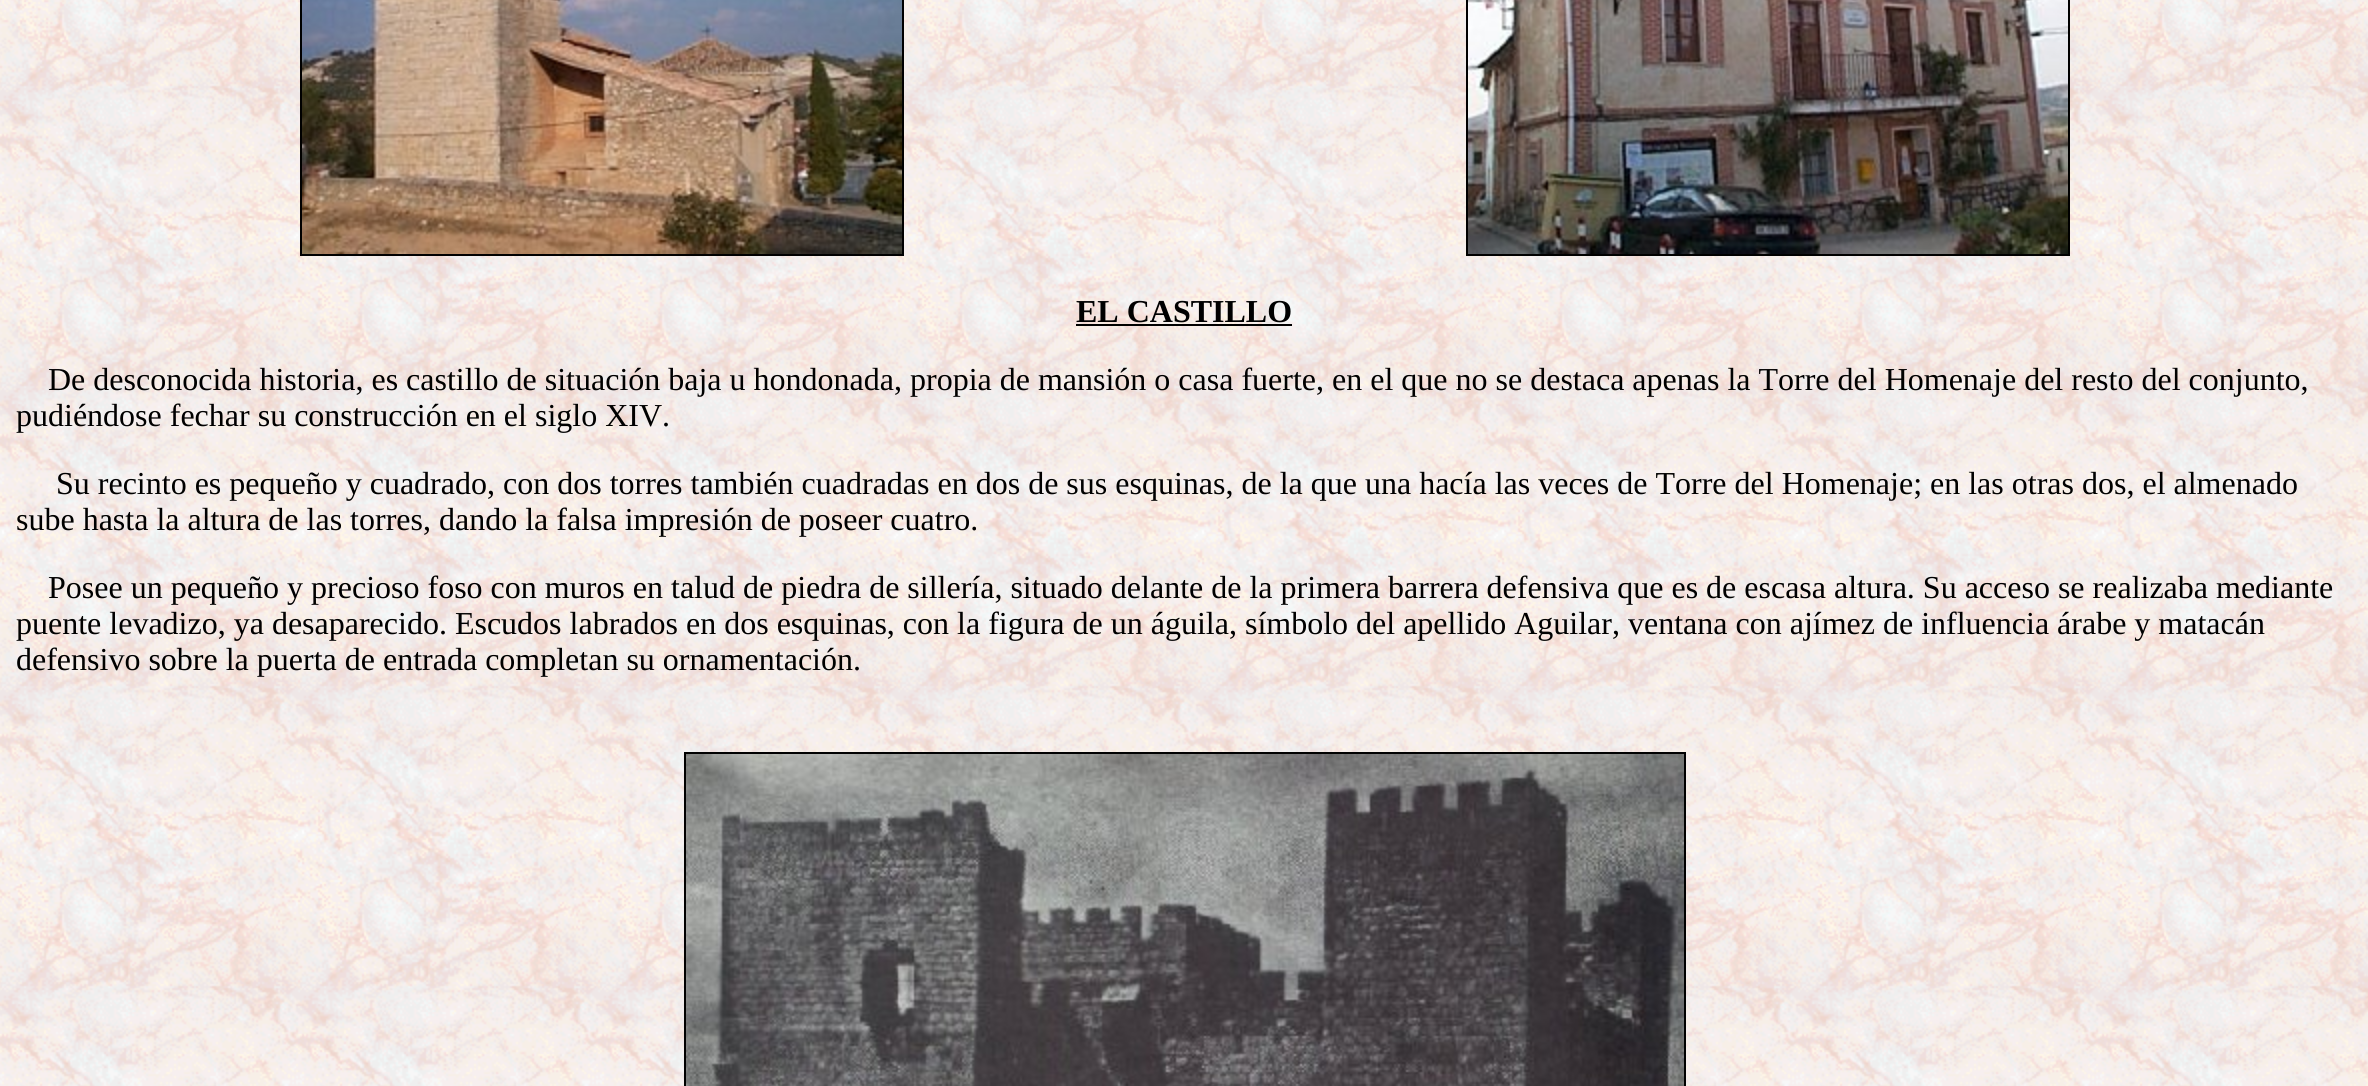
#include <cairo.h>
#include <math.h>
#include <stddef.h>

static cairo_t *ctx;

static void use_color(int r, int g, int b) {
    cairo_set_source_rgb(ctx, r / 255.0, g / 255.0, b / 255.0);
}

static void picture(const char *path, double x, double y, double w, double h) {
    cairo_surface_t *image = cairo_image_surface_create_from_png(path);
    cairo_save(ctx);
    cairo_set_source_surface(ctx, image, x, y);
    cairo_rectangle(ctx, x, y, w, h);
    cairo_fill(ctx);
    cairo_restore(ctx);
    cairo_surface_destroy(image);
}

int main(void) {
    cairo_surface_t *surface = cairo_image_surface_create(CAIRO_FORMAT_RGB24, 2368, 1086);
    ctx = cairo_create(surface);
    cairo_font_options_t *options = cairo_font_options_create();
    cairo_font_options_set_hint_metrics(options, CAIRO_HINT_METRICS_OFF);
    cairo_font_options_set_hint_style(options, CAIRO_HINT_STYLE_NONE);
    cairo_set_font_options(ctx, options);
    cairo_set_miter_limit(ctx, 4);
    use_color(255, 255, 255);
    cairo_paint(ctx);
    picture("img1.png", 0, 0, 2368, 1086);
    cairo_rectangle(ctx, 301, -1, 602, 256);
    use_color(0, 0, 0);
    cairo_stroke(ctx);
    picture("img2.png", 302, 0, 600, 254);
    cairo_rectangle(ctx, 1467, -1, 602, 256);
    cairo_stroke(ctx);
    picture("img3.png", 1468, 0, 600, 254);
    cairo_select_font_face(ctx, "Liberation Serif", CAIRO_FONT_SLANT_NORMAL, CAIRO_FONT_WEIGHT_BOLD);
    cairo_set_font_size(ctx, 32);
    cairo_move_to(ctx, 1076, 322);
    cairo_show_text(ctx, "EL CASTILLO");
    cairo_rectangle(ctx, 1076, 324, 216, 2);
    cairo_fill(ctx);
    cairo_select_font_face(ctx, "Liberation Serif", CAIRO_FONT_SLANT_NORMAL, CAIRO_FONT_WEIGHT_NORMAL);
    cairo_move_to(ctx, 48, 390);
    cairo_show_text(ctx, "De desconocida historia, es castillo de situación baja u hondonada, propia de mansión o casa fuerte, en el que no se destaca apenas la Torre del Homenaje del resto del conjunto,");
    cairo_move_to(ctx, 16, 426);
    cairo_show_text(ctx, "pudiéndose fechar su construcción en el siglo XIV.");
    cairo_move_to(ctx, 56, 494);
    cairo_show_text(ctx, "Su recinto es pequeño y cuadrado, con dos torres también cuadradas en dos de sus esquinas, de la que una hacía las veces de Torre del Homenaje; en las otras dos, el almenado");
    cairo_move_to(ctx, 16, 530);
    cairo_show_text(ctx, "sube hasta la altura de las torres, dando la falsa impresión de poseer cuatro.");
    cairo_move_to(ctx, 48, 598);
    cairo_show_text(ctx, "Posee un pequeño y precioso foso con muros en talud de piedra de sillería, situado delante de la primera barrera defensiva que es de escasa altura. Su acceso se realizaba mediante");
    cairo_move_to(ctx, 16, 634);
    cairo_show_text(ctx, "puente levadizo, ya desaparecido. Escudos labrados en dos esquinas, con la figura de un águila, símbolo del apellido Aguilar, ventana con ajímez de influencia árabe y matacán");
    cairo_move_to(ctx, 16, 670);
    cairo_show_text(ctx, "defensivo sobre la puerta de entrada completan su ornamentación.");
    cairo_rectangle(ctx, 685, 753, 1000, 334);
    cairo_stroke(ctx);
    picture("img4.png", 686, 754, 998, 332);
    cairo_surface_write_to_png(surface, "result.png");
    cairo_font_options_destroy(options);
    cairo_destroy(ctx);
    cairo_surface_destroy(surface);
    return 0;
}
